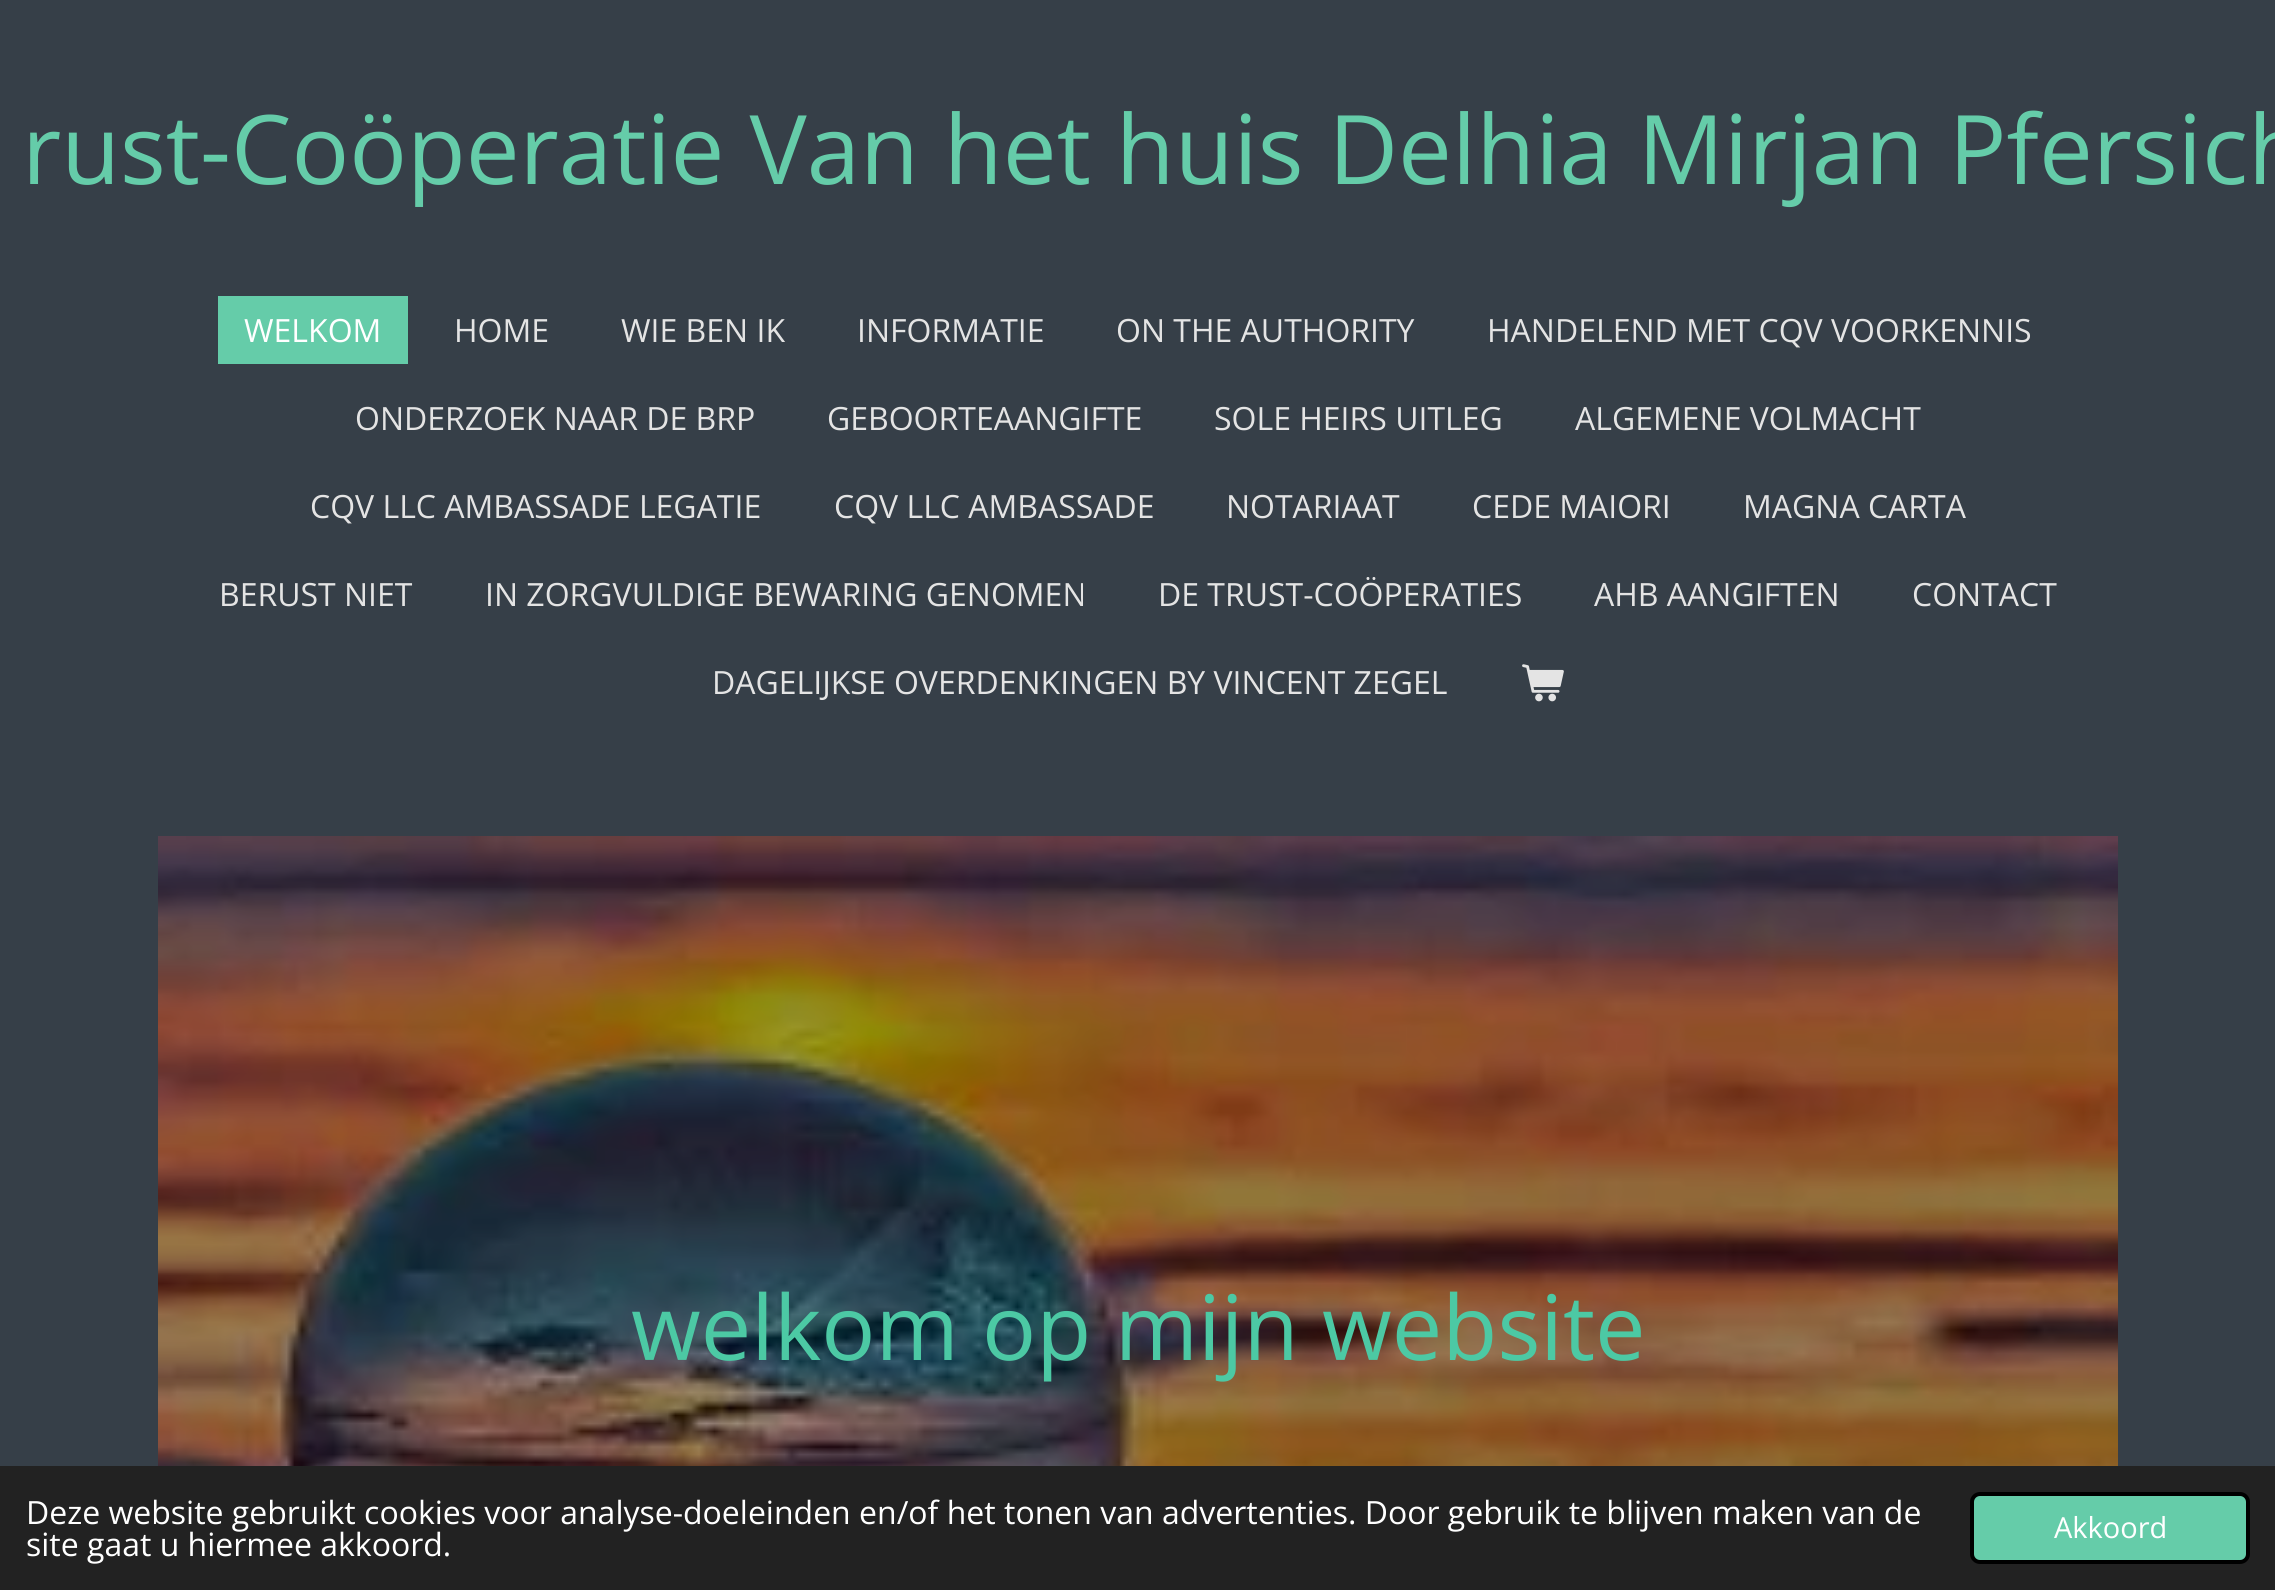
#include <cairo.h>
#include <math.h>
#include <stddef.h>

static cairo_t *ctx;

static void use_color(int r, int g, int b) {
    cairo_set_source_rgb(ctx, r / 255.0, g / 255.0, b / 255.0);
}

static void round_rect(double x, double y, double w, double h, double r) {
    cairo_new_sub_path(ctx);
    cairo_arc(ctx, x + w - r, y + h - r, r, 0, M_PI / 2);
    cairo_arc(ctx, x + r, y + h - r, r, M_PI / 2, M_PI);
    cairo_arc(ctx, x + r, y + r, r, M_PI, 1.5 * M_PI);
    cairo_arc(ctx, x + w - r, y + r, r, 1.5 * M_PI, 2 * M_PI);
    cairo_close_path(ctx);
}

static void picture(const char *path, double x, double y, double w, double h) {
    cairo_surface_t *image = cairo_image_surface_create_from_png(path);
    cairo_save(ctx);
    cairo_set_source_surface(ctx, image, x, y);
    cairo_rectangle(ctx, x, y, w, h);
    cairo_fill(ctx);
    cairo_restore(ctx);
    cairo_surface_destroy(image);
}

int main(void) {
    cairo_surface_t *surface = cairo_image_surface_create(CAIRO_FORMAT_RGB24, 2275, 1590);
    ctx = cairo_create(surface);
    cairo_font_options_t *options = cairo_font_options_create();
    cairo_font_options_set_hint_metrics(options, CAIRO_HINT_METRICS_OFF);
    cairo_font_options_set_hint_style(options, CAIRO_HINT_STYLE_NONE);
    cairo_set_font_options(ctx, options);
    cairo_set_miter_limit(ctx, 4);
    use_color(54, 63, 72);
    cairo_paint(ctx);
    cairo_select_font_face(ctx, "Open Sans", CAIRO_FONT_SLANT_NORMAL, CAIRO_FONT_WEIGHT_NORMAL);
    cairo_set_font_size(ctx, 96);
    use_color(101, 204, 169);
    cairo_move_to(ctx, 22, 184);
    cairo_show_text(ctx, "rust-Coöperatie Van het huis Delhia Mirjan Pfersich");
    cairo_rectangle(ctx, 218, 296, 190, 68);
    cairo_fill(ctx);
    cairo_set_font_size(ctx, 32);
    use_color(255, 255, 255);
    cairo_move_to(ctx, 244, 342);
    cairo_show_text(ctx, "WELKOM");
    use_color(228, 228, 228);
    cairo_move_to(ctx, 454, 342);
    cairo_show_text(ctx, "HOME");
    cairo_move_to(ctx, 621, 342);
    cairo_show_text(ctx, "WIE BEN IK");
    cairo_move_to(ctx, 857, 342);
    cairo_show_text(ctx, "INFORMATIE");
    cairo_move_to(ctx, 1116, 342);
    cairo_show_text(ctx, "ON THE AUTHORITY");
    cairo_move_to(ctx, 1487, 342);
    cairo_show_text(ctx, "HANDELEND MET CQV VOORKENNIS");
    cairo_move_to(ctx, 355, 430);
    cairo_show_text(ctx, "ONDERZOEK NAAR DE BRP");
    cairo_move_to(ctx, 827, 430);
    cairo_show_text(ctx, "GEBOORTEAANGIFTE");
    cairo_move_to(ctx, 1214, 430);
    cairo_show_text(ctx, "SOLE HEIRS UITLEG");
    cairo_move_to(ctx, 1575, 430);
    cairo_show_text(ctx, "ALGEMENE VOLMACHT");
    cairo_move_to(ctx, 310, 518);
    cairo_show_text(ctx, "CQV LLC AMBASSADE LEGATIE");
    cairo_move_to(ctx, 834, 518);
    cairo_show_text(ctx, "CQV LLC AMBASSADE");
    cairo_move_to(ctx, 1226, 518);
    cairo_show_text(ctx, "NOTARIAAT");
    cairo_move_to(ctx, 1472, 518);
    cairo_show_text(ctx, "CEDE MAIORI");
    cairo_move_to(ctx, 1743, 518);
    cairo_show_text(ctx, "MAGNA CARTA");
    cairo_move_to(ctx, 219, 606);
    cairo_show_text(ctx, "BERUST NIET");
    cairo_move_to(ctx, 485, 606);
    cairo_show_text(ctx, "IN ZORGVULDIGE BEWARING GENOMEN");
    cairo_move_to(ctx, 1158, 606);
    cairo_show_text(ctx, "DE TRUST-COÖPERATIES");
    cairo_move_to(ctx, 1594, 606);
    cairo_show_text(ctx, "AHB AANGIFTEN");
    cairo_move_to(ctx, 1912, 606);
    cairo_show_text(ctx, "CONTACT");
    cairo_move_to(ctx, 712, 694);
    cairo_show_text(ctx, "DAGELIJKSE OVERDENKINGEN BY VINCENT ZEGEL");
    picture("img1.png", 1522, 664, 42, 38);
    picture("img2.png", 158, 836, 1960, 630);
    cairo_set_font_size(ctx, 90);
    use_color(76, 201, 164);
    cairo_move_to(ctx, 631, 1360);
    cairo_show_text(ctx, "welkom op mijn website");
    use_color(34, 34, 34);
    cairo_rectangle(ctx, 0, 1466, 2275, 124);
    cairo_fill(ctx);
    cairo_set_font_size(ctx, 32);
    use_color(255, 255, 255);
    cairo_move_to(ctx, 26, 1524);
    cairo_show_text(ctx, "Deze website gebruikt cookies voor analyse-doeleinden en/of het tonen van advertenties. Door gebruik te blijven maken van de");
    cairo_move_to(ctx, 26, 1556);
    cairo_show_text(ctx, "site gaat u hiermee akkoord.");
    use_color(101, 204, 169);
    round_rect(1972, 1494, 276, 68, 8);
    cairo_fill_preserve(ctx);
    use_color(0, 0, 0);
    cairo_set_line_width(ctx, 4);
    cairo_stroke(ctx);
    cairo_set_font_size(ctx, 29);
    use_color(255, 255, 255);
    cairo_move_to(ctx, 2054, 1538);
    cairo_show_text(ctx, "Akkoord");
    cairo_surface_write_to_png(surface, "result.png");
    cairo_font_options_destroy(options);
    cairo_destroy(ctx);
    cairo_surface_destroy(surface);
    return 0;
}
